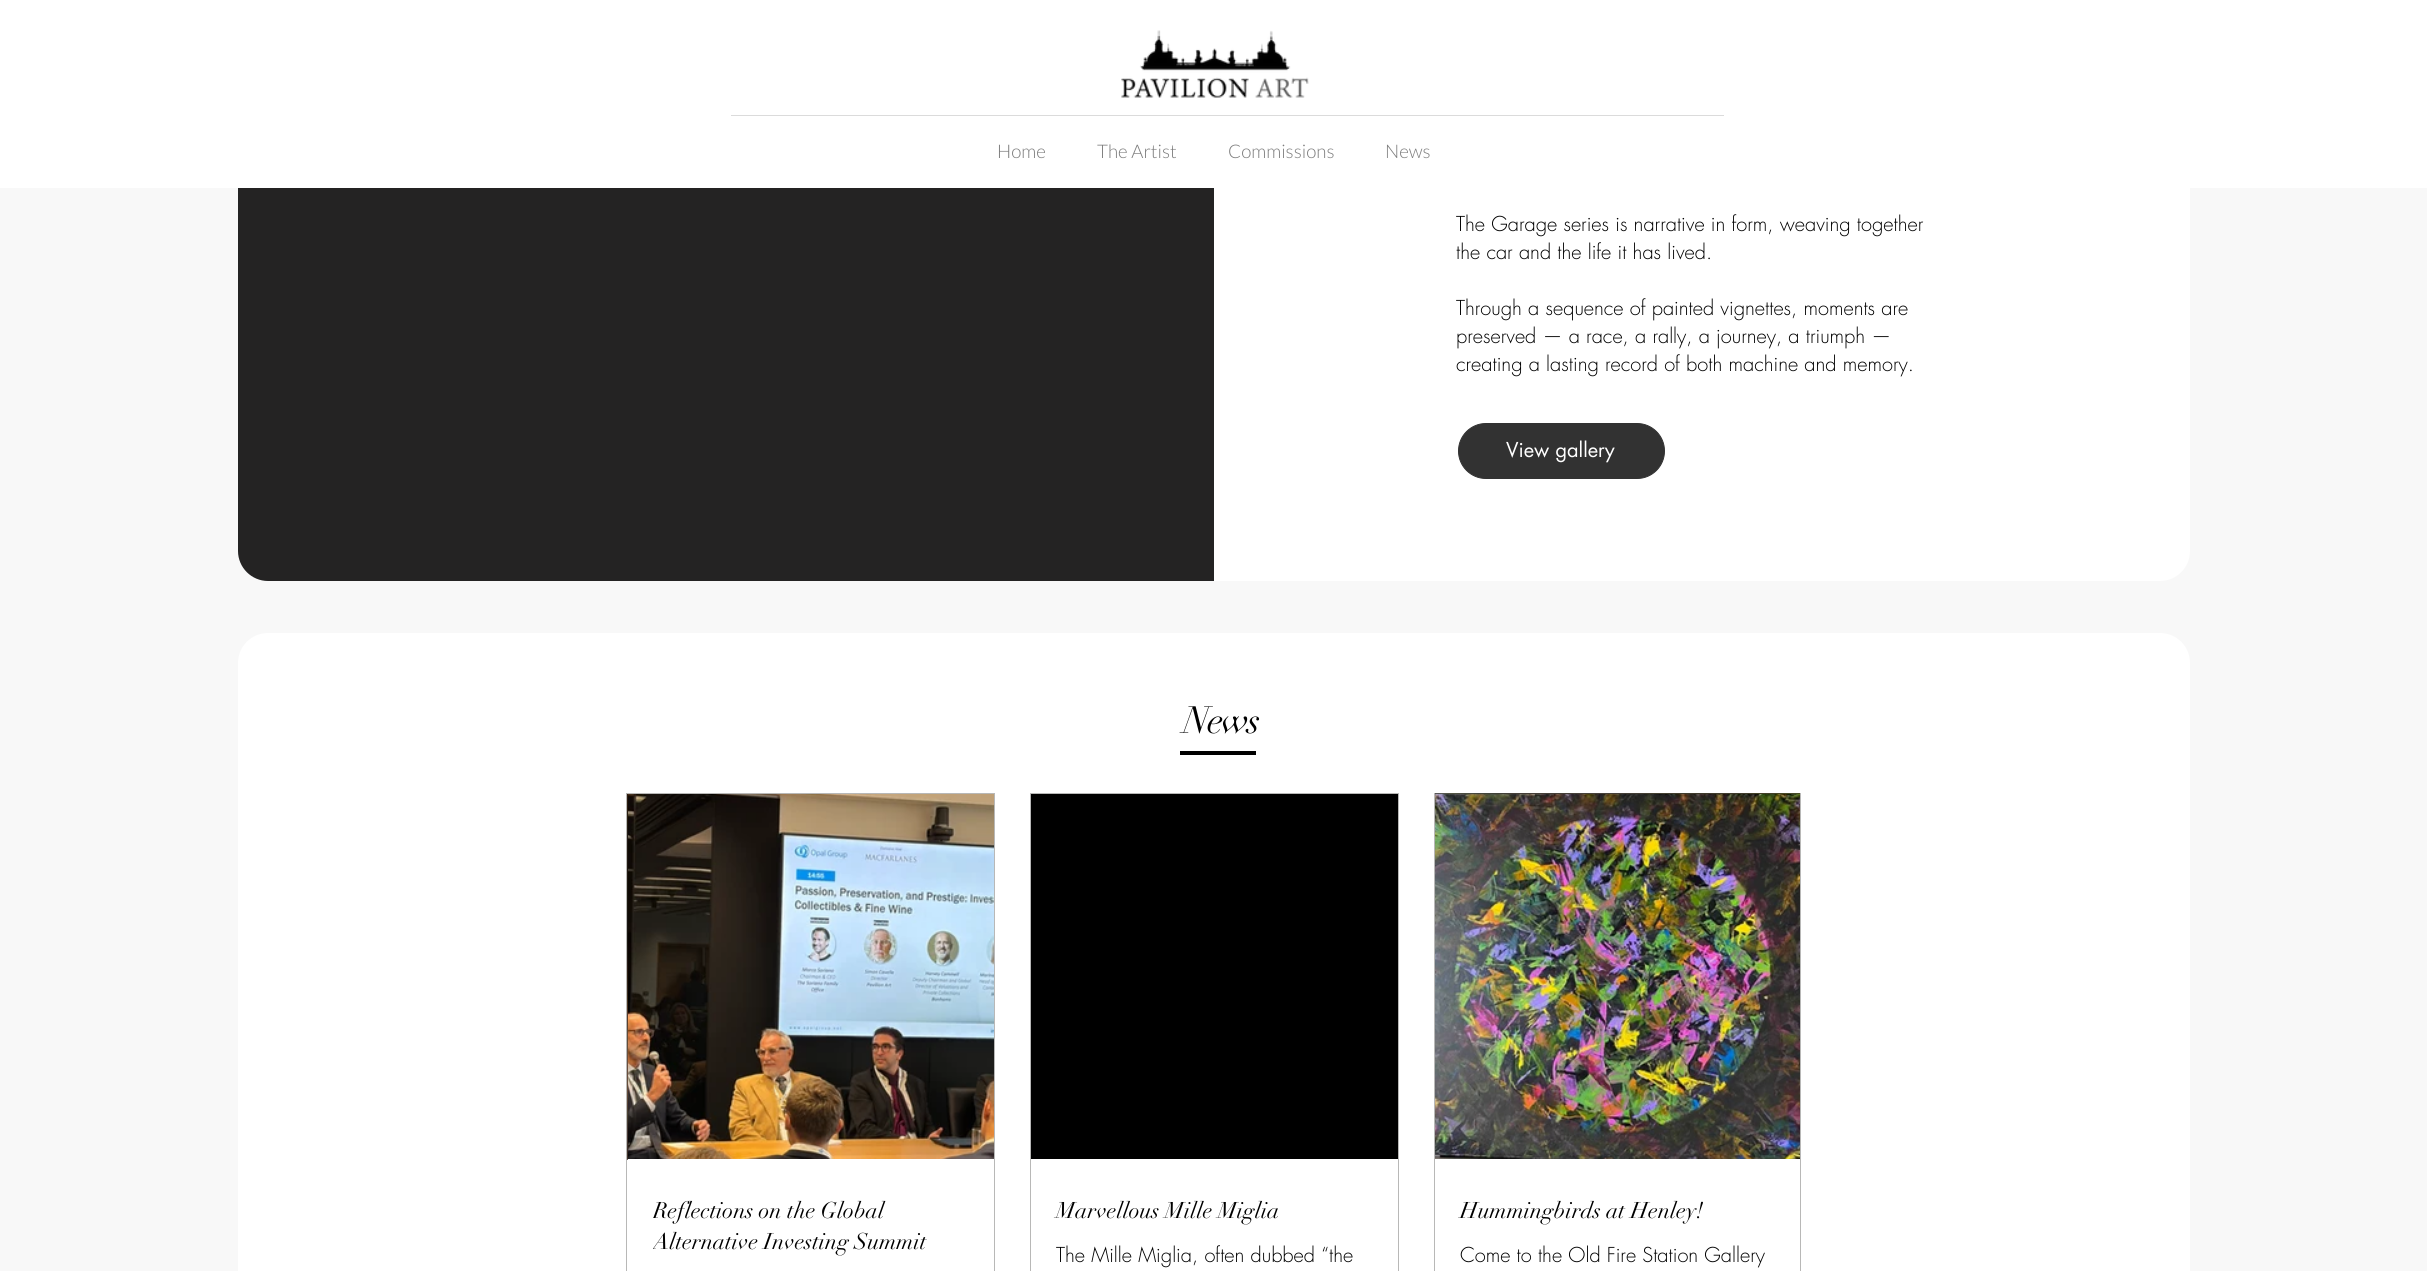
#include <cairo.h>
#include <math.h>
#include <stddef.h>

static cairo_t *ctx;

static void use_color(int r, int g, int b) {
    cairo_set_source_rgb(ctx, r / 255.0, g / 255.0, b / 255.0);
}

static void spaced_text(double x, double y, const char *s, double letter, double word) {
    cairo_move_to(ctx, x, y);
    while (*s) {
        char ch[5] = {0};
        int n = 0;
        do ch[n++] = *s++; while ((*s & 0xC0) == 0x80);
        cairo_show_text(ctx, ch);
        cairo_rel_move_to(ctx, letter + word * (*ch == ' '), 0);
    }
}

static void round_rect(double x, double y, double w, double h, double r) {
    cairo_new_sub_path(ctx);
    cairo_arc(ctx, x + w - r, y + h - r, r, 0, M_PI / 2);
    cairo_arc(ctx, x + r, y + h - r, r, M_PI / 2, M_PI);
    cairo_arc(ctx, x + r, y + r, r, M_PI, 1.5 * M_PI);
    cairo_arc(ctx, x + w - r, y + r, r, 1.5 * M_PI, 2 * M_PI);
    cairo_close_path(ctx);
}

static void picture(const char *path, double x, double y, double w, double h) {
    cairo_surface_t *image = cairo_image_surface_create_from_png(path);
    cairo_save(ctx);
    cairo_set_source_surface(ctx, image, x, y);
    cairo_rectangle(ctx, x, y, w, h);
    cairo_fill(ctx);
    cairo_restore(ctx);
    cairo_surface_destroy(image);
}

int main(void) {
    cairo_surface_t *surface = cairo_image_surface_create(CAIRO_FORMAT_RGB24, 2427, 1271);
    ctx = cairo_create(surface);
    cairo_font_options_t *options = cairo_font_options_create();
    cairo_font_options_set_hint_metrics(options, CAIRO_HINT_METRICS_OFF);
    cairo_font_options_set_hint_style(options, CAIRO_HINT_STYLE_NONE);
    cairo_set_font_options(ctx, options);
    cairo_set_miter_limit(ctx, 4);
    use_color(248, 248, 248);
    cairo_paint(ctx);
    use_color(36, 35, 35);
    cairo_new_path(ctx);
    cairo_move_to(ctx, 268, -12);
    cairo_line_to(ctx, 1214, -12);
    cairo_line_to(ctx, 1214, 581);
    cairo_line_to(ctx, 268, 581);
    cairo_curve_to(ctx, 251.5, 581, 238, 567.5, 238, 551);
    cairo_line_to(ctx, 238, 18);
    cairo_curve_to(ctx, 238, 1.5, 251.5, -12, 268, -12);
    cairo_close_path(ctx);
    cairo_fill(ctx);
    use_color(255, 255, 255);
    cairo_new_path(ctx);
    cairo_move_to(ctx, 1214, -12);
    cairo_line_to(ctx, 2160, -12);
    cairo_curve_to(ctx, 2176.5, -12, 2190, 1.5, 2190, 18);
    cairo_line_to(ctx, 2190, 551);
    cairo_curve_to(ctx, 2190, 567.5, 2176.5, 581, 2160, 581);
    cairo_line_to(ctx, 1214, 581);
    cairo_close_path(ctx);
    cairo_fill(ctx);
    cairo_rectangle(ctx, 0, 0, 2427, 188);
    cairo_fill(ctx);
    picture("img1.png", 1121, 30, 188, 68);
    use_color(219, 219, 219);
    cairo_rectangle(ctx, 731, 115, 993, 1);
    cairo_fill(ctx);
    cairo_select_font_face(ctx, "Lato Light", CAIRO_FONT_SLANT_NORMAL, CAIRO_FONT_WEIGHT_NORMAL);
    cairo_set_font_size(ctx, 18.75);
    use_color(124, 124, 124);
    cairo_move_to(ctx, 997, 158);
    cairo_show_text(ctx, "Home");
    cairo_move_to(ctx, 1097, 158);
    cairo_show_text(ctx, "The Artist");
    cairo_move_to(ctx, 1228, 158);
    cairo_show_text(ctx, "Commissions");
    cairo_move_to(ctx, 1385, 158);
    cairo_show_text(ctx, "News");
    cairo_select_font_face(ctx, "futura Light", CAIRO_FONT_SLANT_NORMAL, CAIRO_FONT_WEIGHT_NORMAL);
    cairo_set_font_size(ctx, 20);
    use_color(0, 0, 0);
    cairo_move_to(ctx, 1456, 231);
    cairo_show_text(ctx, "The Garage series is narrative in form, weaving together");
    cairo_move_to(ctx, 1456, 259);
    cairo_show_text(ctx, "the car and the life it has lived.");
    cairo_move_to(ctx, 1456, 315);
    cairo_show_text(ctx, "Through a sequence of painted vignettes, moments are");
    cairo_move_to(ctx, 1456, 343);
    cairo_show_text(ctx, "preserved — a race, a rally, a journey, a triumph —");
    cairo_move_to(ctx, 1456, 371);
    cairo_show_text(ctx, "creating a lasting record of both machine and memory.");
    use_color(50, 50, 50);
    round_rect(1458.5, 423.5, 206, 55, 27.5);
    cairo_fill_preserve(ctx);
    cairo_set_line_width(ctx, 1);
    cairo_stroke(ctx);
    cairo_select_font_face(ctx, "futura", CAIRO_FONT_SLANT_NORMAL, CAIRO_FONT_WEIGHT_NORMAL);
    use_color(255, 255, 255);
    cairo_move_to(ctx, 1506, 457);
    cairo_show_text(ctx, "View gallery");
    round_rect(238, 633, 1952, 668, 30);
    cairo_fill(ctx);
    cairo_select_font_face(ctx, "didot", CAIRO_FONT_SLANT_NORMAL, CAIRO_FONT_WEIGHT_NORMAL);
    cairo_set_font_size(ctx, 37.5);
    use_color(0, 0, 0);
    spaced_text(1183, 733, "News", -2, 0);
    cairo_rectangle(ctx, 1180, 751, 76, 4);
    cairo_fill(ctx);
    cairo_rectangle(ctx, 626.5, 793.5, 368, 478);
    use_color(184, 184, 183);
    cairo_stroke(ctx);
    picture("img2.png", 627, 794, 1, 366);
    picture("img3.png", 628, 794, 366, 365);
    cairo_save(ctx);
    cairo_rectangle(ctx, 653, 1195, 316, 64);
    cairo_clip(ctx);
    cairo_set_font_size(ctx, 22.5);
    use_color(0, 0, 0);
    cairo_move_to(ctx, 653, 1218);
    cairo_show_text(ctx, "Reflections on the Global");
    cairo_move_to(ctx, 653, 1249);
    cairo_show_text(ctx, "Alternative Investing Summit");
    cairo_restore(ctx);
    cairo_rectangle(ctx, 1030.5, 793.5, 368, 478);
    cairo_stroke(ctx);
    use_color(0, 0, 0);
    cairo_rectangle(ctx, 1031, 794, 367, 365);
    cairo_fill(ctx);
    cairo_set_font_size(ctx, 22.5);
    cairo_move_to(ctx, 1056, 1218);
    cairo_show_text(ctx, "Marvellous Mille Miglia");
    cairo_select_font_face(ctx, "futura Light", CAIRO_FONT_SLANT_NORMAL, CAIRO_FONT_WEIGHT_NORMAL);
    cairo_set_font_size(ctx, 20);
    cairo_move_to(ctx, 1056, 1262);
    cairo_show_text(ctx, "The Mille Miglia, often dubbed “the");
    cairo_rectangle(ctx, 1434.5, 793.5, 366, 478);
    use_color(184, 184, 183);
    cairo_stroke(ctx);
    picture("img4.png", 1435, 793, 365, 1);
    picture("img5.png", 1435, 794, 365, 365);
    cairo_select_font_face(ctx, "didot", CAIRO_FONT_SLANT_NORMAL, CAIRO_FONT_WEIGHT_NORMAL);
    cairo_set_font_size(ctx, 22.5);
    use_color(0, 0, 0);
    cairo_move_to(ctx, 1460, 1218);
    cairo_show_text(ctx, "Hummingbirds at Henley!");
    cairo_select_font_face(ctx, "futura Light", CAIRO_FONT_SLANT_NORMAL, CAIRO_FONT_WEIGHT_NORMAL);
    cairo_set_font_size(ctx, 20);
    cairo_move_to(ctx, 1460, 1262);
    cairo_show_text(ctx, "Come to the Old Fire Station Gallery");
    cairo_surface_write_to_png(surface, "result.png");
    cairo_font_options_destroy(options);
    cairo_destroy(ctx);
    cairo_surface_destroy(surface);
    return 0;
}
